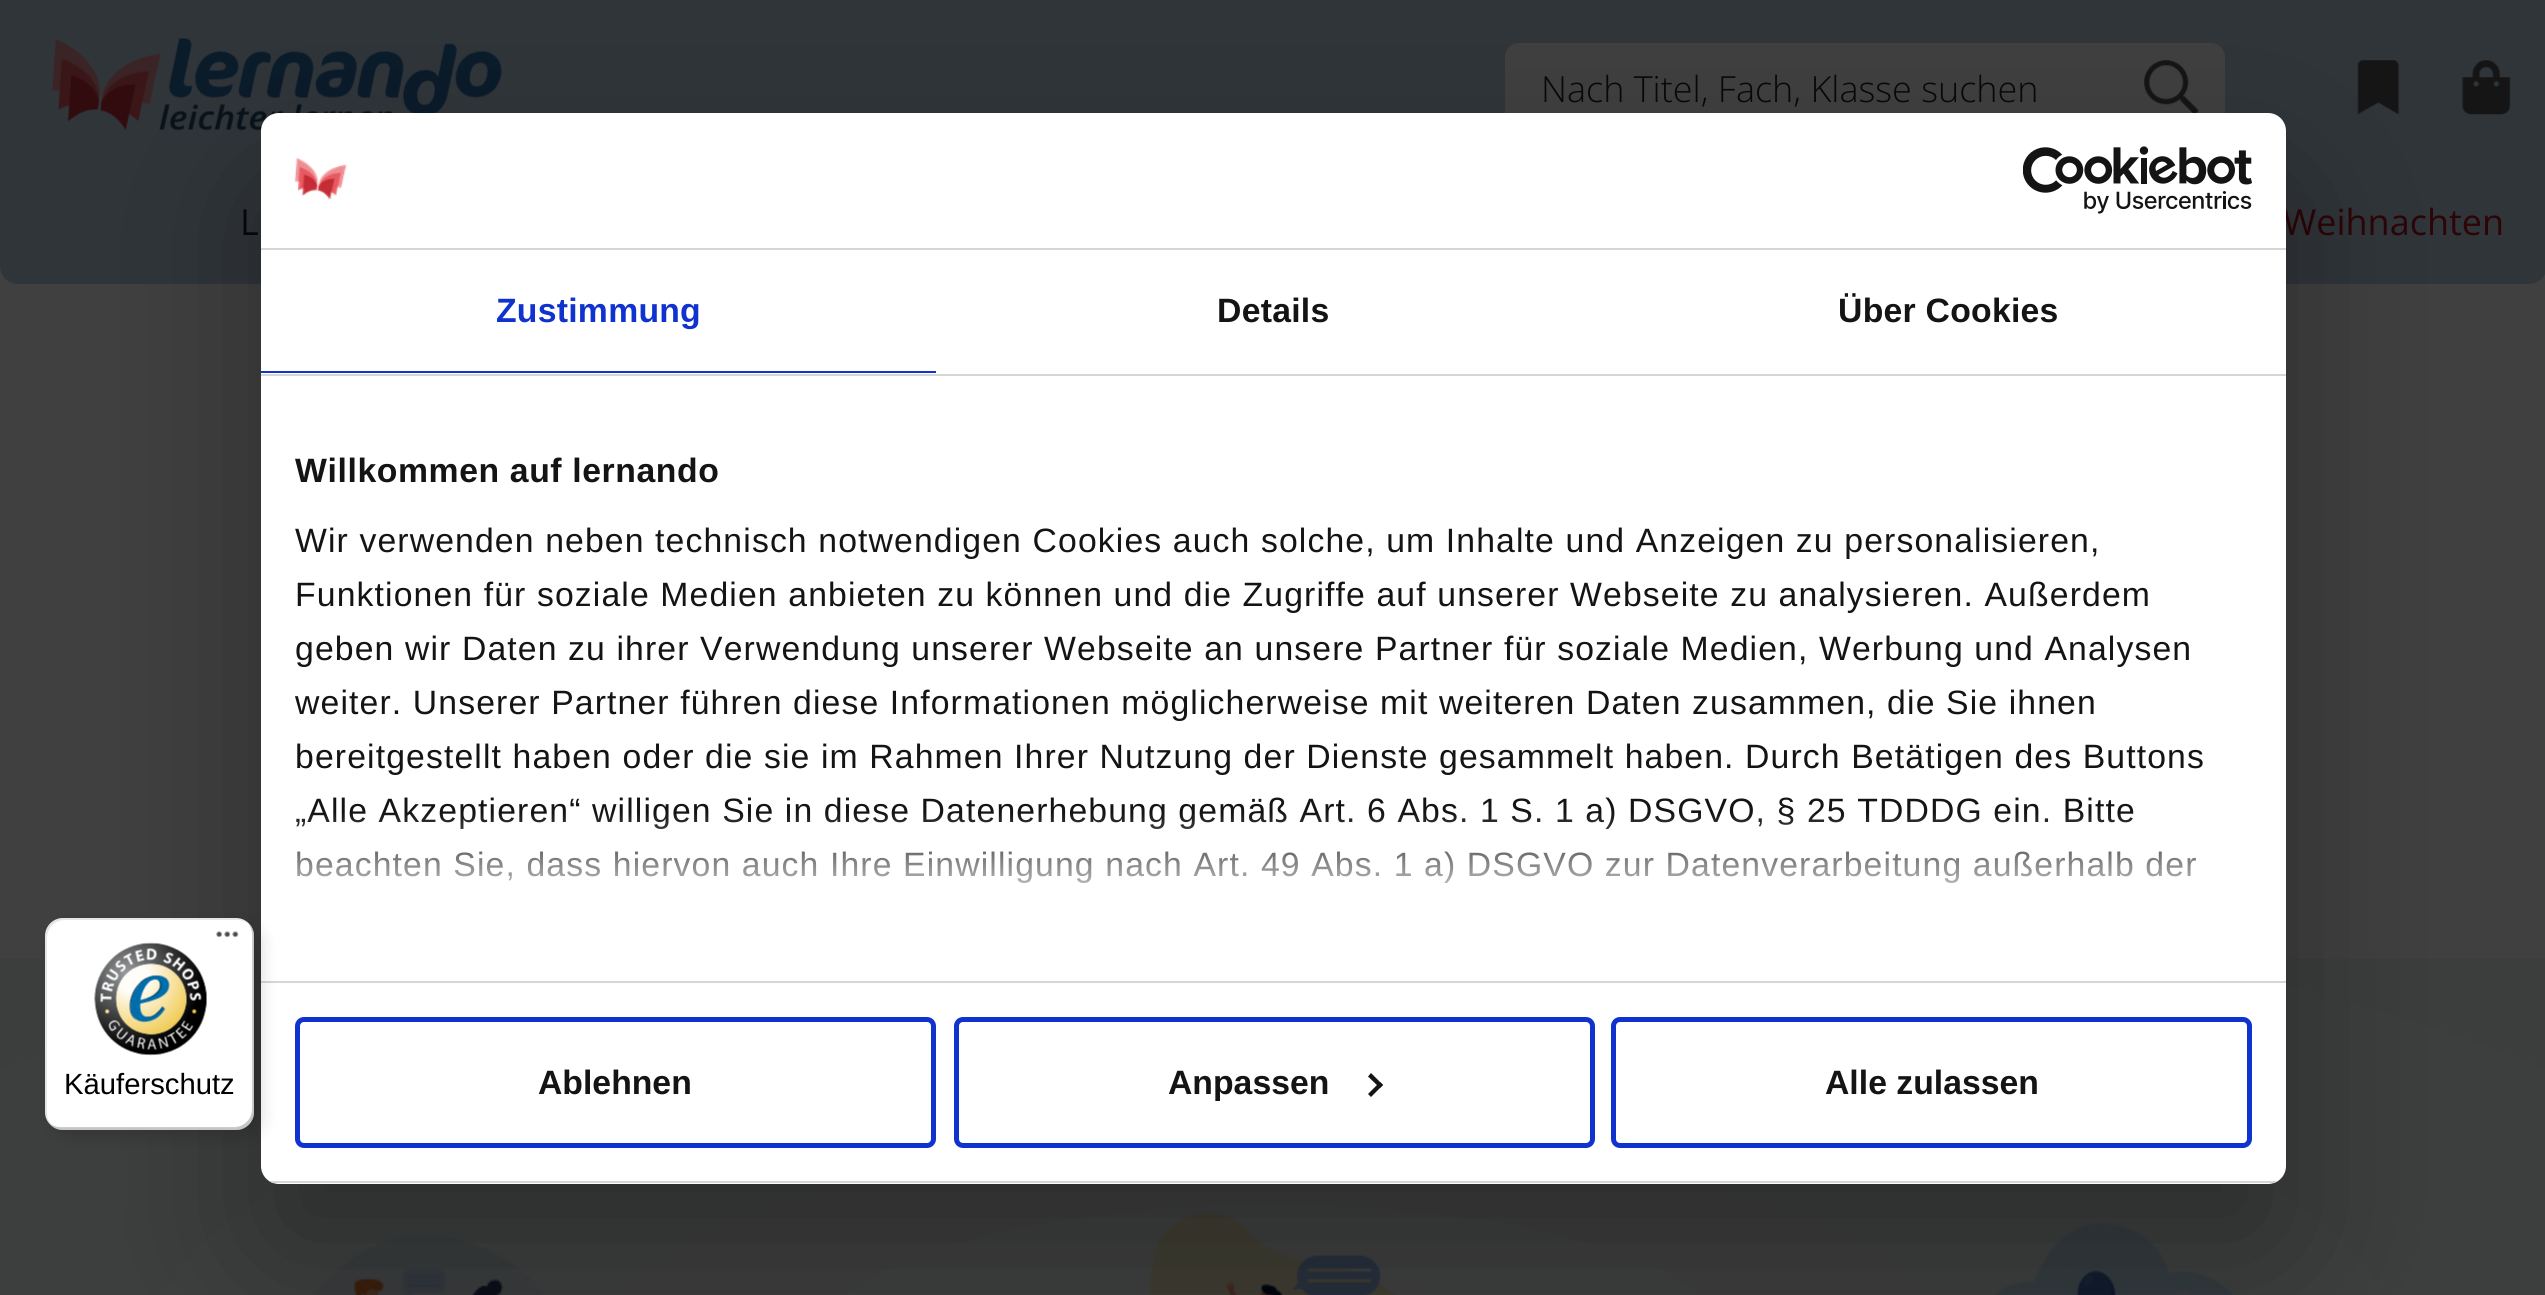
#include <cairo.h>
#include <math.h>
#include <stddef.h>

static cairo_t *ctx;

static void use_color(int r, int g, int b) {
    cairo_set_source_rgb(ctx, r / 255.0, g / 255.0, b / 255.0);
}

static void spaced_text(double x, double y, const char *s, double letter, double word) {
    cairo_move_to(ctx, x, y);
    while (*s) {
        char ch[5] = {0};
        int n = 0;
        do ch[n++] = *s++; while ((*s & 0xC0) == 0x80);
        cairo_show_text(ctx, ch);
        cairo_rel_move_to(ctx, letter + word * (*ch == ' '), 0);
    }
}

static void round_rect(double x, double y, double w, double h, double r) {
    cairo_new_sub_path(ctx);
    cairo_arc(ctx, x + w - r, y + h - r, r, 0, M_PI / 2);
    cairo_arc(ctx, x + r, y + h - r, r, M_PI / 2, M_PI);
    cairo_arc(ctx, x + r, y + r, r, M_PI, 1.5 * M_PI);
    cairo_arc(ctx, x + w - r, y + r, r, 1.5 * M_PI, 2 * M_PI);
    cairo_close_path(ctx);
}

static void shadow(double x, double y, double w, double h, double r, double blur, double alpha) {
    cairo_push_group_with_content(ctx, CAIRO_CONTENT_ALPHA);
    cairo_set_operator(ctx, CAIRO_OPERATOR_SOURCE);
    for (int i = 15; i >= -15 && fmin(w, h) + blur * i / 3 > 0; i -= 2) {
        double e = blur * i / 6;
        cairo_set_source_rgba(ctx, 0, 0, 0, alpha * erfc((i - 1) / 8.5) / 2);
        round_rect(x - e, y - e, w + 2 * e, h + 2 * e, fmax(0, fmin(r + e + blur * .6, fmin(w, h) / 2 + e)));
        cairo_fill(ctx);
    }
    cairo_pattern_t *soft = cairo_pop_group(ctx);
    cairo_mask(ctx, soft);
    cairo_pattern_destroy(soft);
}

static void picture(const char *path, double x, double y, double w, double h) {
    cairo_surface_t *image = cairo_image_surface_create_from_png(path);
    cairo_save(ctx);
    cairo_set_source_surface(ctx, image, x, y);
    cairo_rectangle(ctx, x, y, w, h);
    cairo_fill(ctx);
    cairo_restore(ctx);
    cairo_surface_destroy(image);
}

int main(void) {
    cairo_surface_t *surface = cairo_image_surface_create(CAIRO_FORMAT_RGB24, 2545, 1295);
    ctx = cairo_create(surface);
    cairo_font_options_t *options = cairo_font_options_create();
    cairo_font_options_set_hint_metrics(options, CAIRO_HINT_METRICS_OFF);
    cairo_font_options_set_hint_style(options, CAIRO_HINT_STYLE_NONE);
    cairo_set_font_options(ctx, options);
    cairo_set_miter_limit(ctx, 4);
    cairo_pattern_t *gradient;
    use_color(64, 64, 64);
    cairo_paint(ctx);
    use_color(48, 53, 58);
    cairo_new_path(ctx);
    cairo_move_to(ctx, 0, 0);
    cairo_line_to(ctx, 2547, 0);
    cairo_line_to(ctx, 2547, 266);
    cairo_curve_to(ctx, 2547, 276, 2539, 284, 2529, 284);
    cairo_line_to(ctx, 18, 284);
    cairo_curve_to(ctx, 8, 284, 0, 276, 0, 266);
    cairo_close_path(ctx);
    cairo_fill(ctx);
    picture("img1.png", 51, 38, 451, 93);
    use_color(64, 64, 64);
    round_rect(1505, 43, 720, 90, 14);
    cairo_fill(ctx);
    cairo_select_font_face(ctx, "Open Sans Light", CAIRO_FONT_SLANT_NORMAL, CAIRO_FONT_WEIGHT_NORMAL);
    cairo_set_font_size(ctx, 36);
    use_color(8, 8, 8);
    cairo_move_to(ctx, 1541, 102);
    cairo_show_text(ctx, "Nach Titel, Fach, Klasse suchen");
    picture("img2.png", 2144, 60, 55, 53);
    picture("img3.png", 2357, 60, 43, 55);
    picture("img4.png", 2462, 60, 49, 55);
    cairo_select_font_face(ctx, "Open Sans", CAIRO_FONT_SLANT_NORMAL, CAIRO_FONT_WEIGHT_NORMAL);
    cairo_move_to(ctx, 240, 235);
    cairo_show_text(ctx, "L");
    use_color(43, 5, 7);
    cairo_move_to(ctx, 2283, 235);
    cairo_show_text(ctx, "Weihnachten");
    gradient = cairo_pattern_create_radial(0, 0, 0, 0, 0, 1);
    cairo_pattern_set_matrix(gradient, &(cairo_matrix_t){1.0 / 1801, 0, 0, 1.0 / 535, -1.0 * 1274 / 1801, -1.0 * 1337 / 535});
    cairo_pattern_add_color_stop_rgba(gradient, 0, 0.251, 0.251, 0.251, 1);
    cairo_pattern_add_color_stop_rgba(gradient, 1, 0.235, 0.243, 0.243, 1);
    cairo_set_source(ctx, gradient);
    cairo_pattern_destroy(gradient);
    cairo_rectangle(ctx, 0, 959, 2545, 336);
    cairo_fill(ctx);
    picture("img5.png", 315, 1235, 230, 60);
    picture("img6.png", 1148, 1212, 249, 83);
    picture("img7.png", 1993, 1222, 241, 73);
    use_color(0, 0, 0);
    shadow(261, 185, 2025, 1071, 18, 76.5, 0.3);
    use_color(255, 255, 255);
    round_rect(261, 113, 2025, 1071, 18);
    cairo_fill(ctx);
    use_color(214, 214, 214);
    cairo_rectangle(ctx, 261, 981, 2025, 2);
    cairo_fill(ctx);
    use_color(0, 0, 0);
    shadow(52, 925, 209, 211, 18, 9, 0.15);
    use_color(255, 255, 255);
    round_rect(45, 918, 209, 212, 18);
    cairo_fill(ctx);
    cairo_set_source_rgba(ctx, 0, 0, 0, 0.1);
    cairo_new_path(ctx);
    cairo_move_to(ctx, 65, 920);
    cairo_line_to(ctx, 238, 920);
    cairo_curve_to(ctx, 242, 920, 246, 922, 250, 924);
    cairo_curve_to(ctx, 246, 920, 241, 918, 236, 918);
    cairo_line_to(ctx, 63, 918);
    cairo_curve_to(ctx, 53, 918, 45, 926, 45, 936);
    cairo_line_to(ctx, 45, 1112);
    cairo_curve_to(ctx, 45, 1117, 47, 1122, 51, 1126);
    cairo_curve_to(ctx, 49, 1122, 47, 1118, 47, 1114);
    cairo_line_to(ctx, 47, 938);
    cairo_curve_to(ctx, 47, 928, 55, 920, 65, 920);
    cairo_close_path(ctx);
    cairo_fill(ctx);
    cairo_set_source_rgba(ctx, 0, 0, 0, 0.2);
    cairo_new_path(ctx);
    cairo_move_to(ctx, 47, 1121);
    cairo_curve_to(ctx, 50, 1126, 56, 1130, 63, 1130);
    cairo_line_to(ctx, 236, 1130);
    cairo_curve_to(ctx, 246, 1130, 254, 1122, 254, 1112);
    cairo_line_to(ctx, 254, 936);
    cairo_curve_to(ctx, 254, 931, 252, 926, 248, 922);
    cairo_curve_to(ctx, 250, 926, 252, 930, 252, 934);
    cairo_line_to(ctx, 252, 1109);
    cairo_curve_to(ctx, 252, 1119, 244, 1127, 234, 1127);
    cairo_line_to(ctx, 61, 1127);
    cairo_curve_to(ctx, 55, 1127, 50, 1125, 47, 1121);
    cairo_close_path(ctx);
    cairo_fill(ctx);
    cairo_set_source_rgba(ctx, 0.196, 0.196, 0.196, 0.2);
    cairo_new_path(ctx);
    cairo_move_to(ctx, 47, 1119);
    cairo_curve_to(ctx, 49, 1126, 56, 1130, 63, 1130);
    cairo_line_to(ctx, 236, 1130);
    cairo_curve_to(ctx, 246, 1130, 254, 1122, 254, 1112);
    cairo_line_to(ctx, 254, 936);
    cairo_curve_to(ctx, 254, 931, 252, 926, 249, 923);
    cairo_curve_to(ctx, 251, 926, 253, 930, 253, 935);
    cairo_line_to(ctx, 253, 1110);
    cairo_curve_to(ctx, 253, 1120, 245, 1128, 235, 1128);
    cairo_line_to(ctx, 62, 1128);
    cairo_curve_to(ctx, 55, 1128, 50, 1124, 47, 1119);
    cairo_close_path(ctx);
    cairo_fill(ctx);
    cairo_set_source_rgba(ctx, 1, 1, 1, 0.3);
    cairo_new_path(ctx);
    cairo_move_to(ctx, 47, 1119);
    cairo_curve_to(ctx, 49, 1126, 56, 1130, 63, 1130);
    cairo_line_to(ctx, 236, 1130);
    cairo_curve_to(ctx, 246, 1130, 254, 1122, 254, 1112);
    cairo_line_to(ctx, 254, 936);
    cairo_curve_to(ctx, 254, 931, 252, 926, 249, 923);
    cairo_curve_to(ctx, 251, 926, 253, 930, 253, 935);
    cairo_line_to(ctx, 253, 1110);
    cairo_curve_to(ctx, 253, 1120, 245, 1128, 235, 1128);
    cairo_line_to(ctx, 62, 1128);
    cairo_curve_to(ctx, 55, 1128, 50, 1124, 47, 1119);
    cairo_close_path(ctx);
    cairo_fill(ctx);
    picture("img8.png", 216, 931, 23, 7);
    picture("img9.png", 94, 942, 113, 114);
    cairo_select_font_face(ctx, "Liberation Sans", CAIRO_FONT_SLANT_NORMAL, CAIRO_FONT_WEIGHT_NORMAL);
    cairo_set_font_size(ctx, 29.25);
    use_color(0, 0, 0);
    cairo_move_to(ctx, 64, 1094);
    cairo_show_text(ctx, "Käuferschutz");
    use_color(214, 214, 214);
    cairo_rectangle(ctx, 261, 248, 2025, 2);
    cairo_fill(ctx);
    picture("img10.png", 294, 157, 53, 43);
    picture("img11.png", 2023, 146, 229, 68);
    cairo_rectangle(ctx, 261, 374, 2025, 2);
    cairo_fill(ctx);
    use_color(16, 50, 207);
    cairo_rectangle(ctx, 261, 371, 675, 2);
    cairo_fill(ctx);
    cairo_select_font_face(ctx, "Liberation Sans", CAIRO_FONT_SLANT_NORMAL, CAIRO_FONT_WEIGHT_BOLD);
    cairo_set_font_size(ctx, 33.75);
    spaced_text(496, 322, "Zustimmung", 0.25, 0);
    use_color(20, 20, 20);
    spaced_text(1217, 322, "Details", 0.25, 0);
    spaced_text(1838, 322, "Über Cookies", 0.25, 0);
    spaced_text(295, 482, "Willkommen auf lernando", 0.6, 0);
    cairo_select_font_face(ctx, "Liberation Sans", CAIRO_FONT_SLANT_NORMAL, CAIRO_FONT_WEIGHT_NORMAL);
    spaced_text(295, 552, "Wir verwenden neben technisch notwendigen Cookies auch solche, um Inhalte und Anzeigen zu personalisieren,", 1.12, 0);
    spaced_text(295, 606, "Funktionen für soziale Medien anbieten zu können und die Zugriffe auf unserer Webseite zu analysieren. Außerdem", 1.12, 0);
    spaced_text(295, 660, "geben wir Daten zu ihrer Verwendung unserer Webseite an unsere Partner für soziale Medien, Werbung und Analysen", 1.12, 0);
    spaced_text(295, 714, "weiter. Unserer Partner führen diese Informationen möglicherweise mit weiteren Daten zusammen, die Sie ihnen", 1.12, 0);
    spaced_text(295, 768, "bereitgestellt haben oder die sie im Rahmen Ihrer Nutzung der Dienste gesammelt haben. Durch Betätigen des Buttons", 1.12, 0);
    spaced_text(295, 822, "„Alle Akzeptieren“ willigen Sie in diese Datenerhebung gemäß Art. 6 Abs. 1 S. 1 a) DSGVO, § 25 TDDDG ein. Bitte", 1.12, 0);
    spaced_text(295, 876, "beachten Sie, dass hiervon auch Ihre Einwilligung nach Art. 49 Abs. 1 a) DSGVO zur Datenverarbeitung außerhalb der", 1.12, 0);
    gradient = cairo_pattern_create_linear(1259, 981, 1259, 812);
    cairo_pattern_add_color_stop_rgba(gradient, 0, 1, 1, 1, 1);
    cairo_pattern_add_color_stop_rgba(gradient, 0.5, 1, 1, 1, 0.8);
    cairo_pattern_add_color_stop_rgba(gradient, 1, 1, 1, 1, 0);
    cairo_set_source(ctx, gradient);
    cairo_pattern_destroy(gradient);
    cairo_rectangle(ctx, 296, 814, 1901, 69);
    cairo_fill(ctx);
    cairo_save(ctx);
    round_rect(261, 113, 2025, 1071, 18);
    cairo_clip(ctx);
    use_color(214, 214, 214);
    cairo_rectangle(ctx, 261, 1181, 2025, 2);
    cairo_fill(ctx);
    cairo_restore(ctx);
    round_rect(297.5, 1019.5, 636, 126, 6.5);
    use_color(16, 50, 207);
    cairo_set_line_width(ctx, 5);
    cairo_stroke(ctx);
    cairo_select_font_face(ctx, "Liberation Sans", CAIRO_FONT_SLANT_NORMAL, CAIRO_FONT_WEIGHT_BOLD);
    use_color(20, 20, 20);
    cairo_move_to(ctx, 538, 1094);
    cairo_show_text(ctx, "Ablehnen");
    round_rect(956.5, 1019.5, 636, 126, 6.5);
    use_color(16, 50, 207);
    cairo_stroke(ctx);
    use_color(20, 20, 20);
    cairo_move_to(ctx, 1168, 1094);
    cairo_show_text(ctx, "Anpassen");
    cairo_new_path(ctx);
    cairo_move_to(ctx, 1371, 1073);
    cairo_line_to(ctx, 1383, 1085);
    cairo_line_to(ctx, 1380, 1088);
    cairo_line_to(ctx, 1368, 1076.5);
    cairo_close_path(ctx);
    cairo_fill(ctx);
    cairo_new_path(ctx);
    cairo_move_to(ctx, 1380, 1082);
    cairo_line_to(ctx, 1383, 1085);
    cairo_line_to(ctx, 1371, 1097);
    cairo_line_to(ctx, 1368, 1094);
    cairo_close_path(ctx);
    cairo_fill(ctx);
    round_rect(1613.5, 1019.5, 636, 126, 6.5);
    use_color(16, 50, 207);
    cairo_stroke(ctx);
    use_color(20, 20, 20);
    cairo_move_to(ctx, 1825, 1094);
    cairo_show_text(ctx, "Alle zulassen");
    cairo_surface_write_to_png(surface, "result.png");
    cairo_font_options_destroy(options);
    cairo_destroy(ctx);
    cairo_surface_destroy(surface);
    return 0;
}
